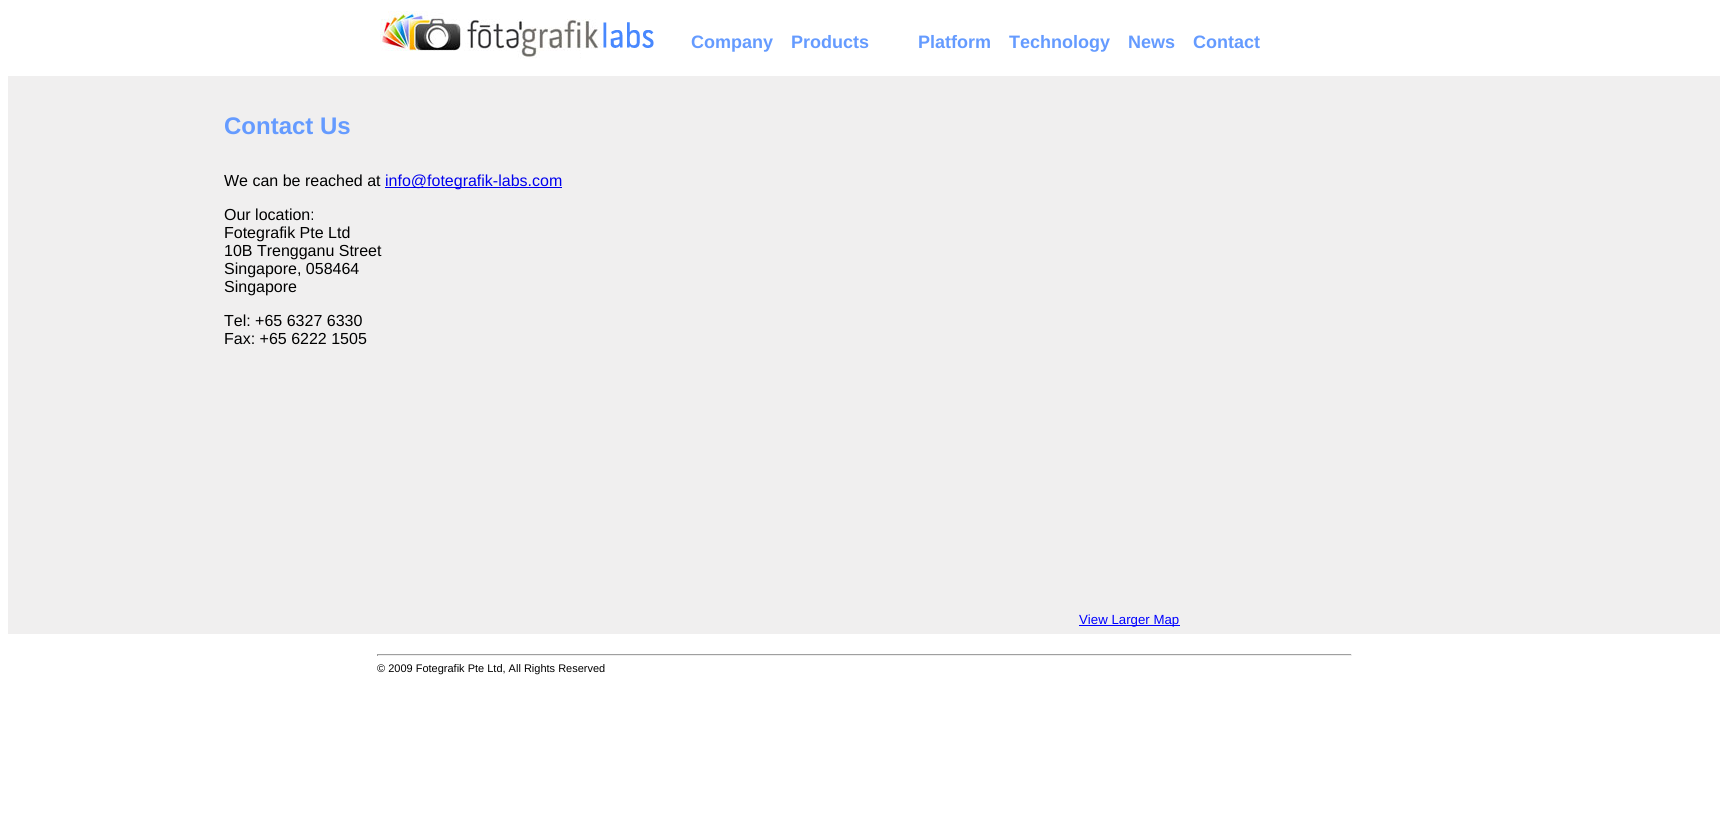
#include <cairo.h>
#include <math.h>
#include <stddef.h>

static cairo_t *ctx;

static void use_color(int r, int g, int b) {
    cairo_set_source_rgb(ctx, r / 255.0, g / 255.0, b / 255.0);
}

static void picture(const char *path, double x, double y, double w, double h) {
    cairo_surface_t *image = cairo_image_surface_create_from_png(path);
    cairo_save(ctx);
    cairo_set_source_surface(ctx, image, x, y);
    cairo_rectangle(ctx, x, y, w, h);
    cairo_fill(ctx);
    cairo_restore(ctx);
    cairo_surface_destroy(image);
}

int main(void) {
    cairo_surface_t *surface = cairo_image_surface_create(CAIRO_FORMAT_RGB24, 1728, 824);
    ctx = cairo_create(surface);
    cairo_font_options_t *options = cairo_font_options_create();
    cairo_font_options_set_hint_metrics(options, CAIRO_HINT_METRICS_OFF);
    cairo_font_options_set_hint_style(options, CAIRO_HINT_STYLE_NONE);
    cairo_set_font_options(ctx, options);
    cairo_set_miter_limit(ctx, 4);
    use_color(255, 255, 255);
    cairo_paint(ctx);
    picture("img1.png", 380, 11, 274, 48);
    cairo_select_font_face(ctx, "Liberation Sans", CAIRO_FONT_SLANT_NORMAL, CAIRO_FONT_WEIGHT_BOLD);
    cairo_set_font_size(ctx, 18);
    use_color(101, 155, 255);
    cairo_move_to(ctx, 691, 48);
    cairo_show_text(ctx, "Company");
    cairo_move_to(ctx, 791, 48);
    cairo_show_text(ctx, "Products");
    cairo_move_to(ctx, 918, 48);
    cairo_show_text(ctx, "Platform");
    cairo_move_to(ctx, 1009, 48);
    cairo_show_text(ctx, "Technology");
    cairo_move_to(ctx, 1128, 48);
    cairo_show_text(ctx, "News");
    cairo_move_to(ctx, 1193, 48);
    cairo_show_text(ctx, "Contact");
    use_color(240, 239, 239);
    cairo_rectangle(ctx, 8, 76, 1712, 558);
    cairo_fill(ctx);
    cairo_set_font_size(ctx, 24);
    use_color(101, 155, 255);
    cairo_move_to(ctx, 224, 134);
    cairo_show_text(ctx, "Contact Us");
    cairo_select_font_face(ctx, "Liberation Sans", CAIRO_FONT_SLANT_NORMAL, CAIRO_FONT_WEIGHT_NORMAL);
    cairo_set_font_size(ctx, 16);
    use_color(0, 0, 0);
    cairo_move_to(ctx, 224, 186);
    cairo_show_text(ctx, "We can be reached at");
    use_color(0, 0, 238);
    cairo_rectangle(ctx, 385, 187, 177, 1);
    cairo_fill(ctx);
    cairo_move_to(ctx, 385, 186);
    cairo_show_text(ctx, "info@fotegrafik-labs.com");
    use_color(0, 0, 0);
    cairo_move_to(ctx, 224, 220);
    cairo_show_text(ctx, "Our location:");
    cairo_move_to(ctx, 224, 238);
    cairo_show_text(ctx, "Fotegrafik Pte Ltd");
    cairo_move_to(ctx, 224, 256);
    cairo_show_text(ctx, "10B Trengganu Street");
    cairo_move_to(ctx, 224, 274);
    cairo_show_text(ctx, "Singapore, 058464");
    cairo_move_to(ctx, 224, 292);
    cairo_show_text(ctx, "Singapore");
    cairo_move_to(ctx, 224, 326);
    cairo_show_text(ctx, "Tel: +65 6327 6330");
    cairo_move_to(ctx, 224, 344);
    cairo_show_text(ctx, "Fax: +65 6222 1505");
    use_color(0, 0, 255);
    cairo_rectangle(ctx, 1079, 625, 101, 1);
    cairo_fill(ctx);
    cairo_set_font_size(ctx, 13.25);
    cairo_move_to(ctx, 1079, 624);
    cairo_show_text(ctx, "View Larger Map");
    use_color(159, 159, 159);
    cairo_rectangle(ctx, 377, 654, 975, 1);
    cairo_fill(ctx);
    use_color(238, 238, 238);
    cairo_rectangle(ctx, 1351, 654, 1, 2);
    cairo_fill(ctx);
    cairo_rectangle(ctx, 377, 655, 975, 1);
    cairo_fill(ctx);
    use_color(159, 159, 159);
    cairo_rectangle(ctx, 377, 654, 1, 2);
    cairo_fill(ctx);
    cairo_set_font_size(ctx, 11);
    use_color(0, 0, 0);
    cairo_move_to(ctx, 377, 672);
    cairo_show_text(ctx, "© 2009 Fotegrafik Pte Ltd, All Rights Reserved");
    cairo_surface_write_to_png(surface, "result.png");
    cairo_font_options_destroy(options);
    cairo_destroy(ctx);
    cairo_surface_destroy(surface);
    return 0;
}
